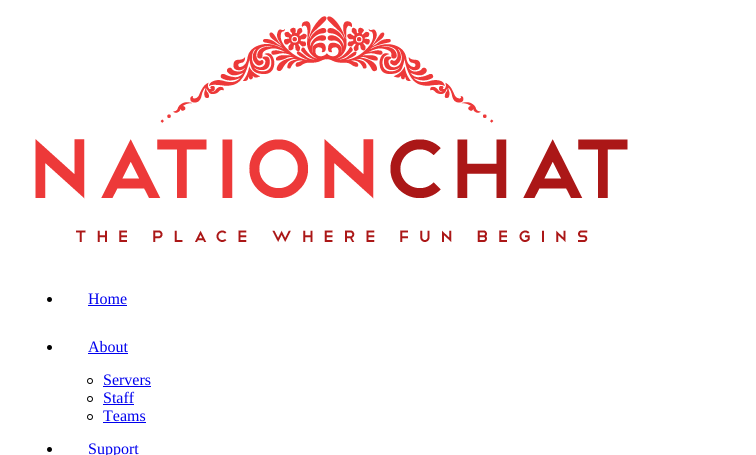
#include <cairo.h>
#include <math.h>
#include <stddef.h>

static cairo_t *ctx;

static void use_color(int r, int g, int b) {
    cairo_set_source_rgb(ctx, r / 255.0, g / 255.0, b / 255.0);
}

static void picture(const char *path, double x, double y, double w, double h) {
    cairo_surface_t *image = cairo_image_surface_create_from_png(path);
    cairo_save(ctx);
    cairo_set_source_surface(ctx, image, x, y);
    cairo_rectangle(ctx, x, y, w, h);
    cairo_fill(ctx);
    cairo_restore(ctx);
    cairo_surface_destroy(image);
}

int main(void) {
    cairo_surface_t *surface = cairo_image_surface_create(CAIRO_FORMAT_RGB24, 756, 455);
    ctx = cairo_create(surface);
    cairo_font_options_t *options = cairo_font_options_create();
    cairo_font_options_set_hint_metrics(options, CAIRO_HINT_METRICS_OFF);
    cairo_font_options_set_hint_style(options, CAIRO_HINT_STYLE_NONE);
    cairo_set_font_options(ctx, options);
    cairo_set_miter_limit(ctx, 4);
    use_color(255, 255, 255);
    cairo_paint(ctx);
    picture("img1.png", 35, 16, 593, 226);
    use_color(0, 0, 0);
    cairo_arc(ctx, 49.5, 299.5, 2.5, 0, 2 * M_PI);
    cairo_fill(ctx);
    cairo_select_font_face(ctx, "Liberation Serif", CAIRO_FONT_SLANT_NORMAL, CAIRO_FONT_WEIGHT_NORMAL);
    cairo_set_font_size(ctx, 16);
    use_color(0, 0, 238);
    cairo_move_to(ctx, 88, 304);
    cairo_show_text(ctx, "Home");
    cairo_rectangle(ctx, 88, 305, 39, 1);
    cairo_fill(ctx);
    use_color(0, 0, 0);
    cairo_arc(ctx, 49.5, 347.5, 2.5, 0, 2 * M_PI);
    cairo_fill(ctx);
    use_color(0, 0, 238);
    cairo_move_to(ctx, 88, 352);
    cairo_show_text(ctx, "About");
    cairo_rectangle(ctx, 88, 353, 40, 1);
    cairo_fill(ctx);
    cairo_arc(ctx, 90, 381, 2.5, 0, 2 * M_PI);
    use_color(0, 0, 0);
    cairo_set_line_width(ctx, 1);
    cairo_stroke(ctx);
    use_color(0, 0, 238);
    cairo_move_to(ctx, 103, 385);
    cairo_show_text(ctx, "Servers");
    cairo_rectangle(ctx, 103, 386, 48, 1);
    cairo_fill(ctx);
    cairo_arc(ctx, 90, 399, 2.5, 0, 2 * M_PI);
    use_color(0, 0, 0);
    cairo_stroke(ctx);
    use_color(0, 0, 238);
    cairo_move_to(ctx, 103, 403);
    cairo_show_text(ctx, "Staff");
    cairo_rectangle(ctx, 103, 404, 31, 1);
    cairo_fill(ctx);
    cairo_arc(ctx, 90, 417, 2.5, 0, 2 * M_PI);
    use_color(0, 0, 0);
    cairo_stroke(ctx);
    use_color(0, 0, 238);
    cairo_move_to(ctx, 103, 421);
    cairo_show_text(ctx, "Teams");
    cairo_rectangle(ctx, 103, 422, 43, 1);
    cairo_fill(ctx);
    use_color(0, 0, 0);
    cairo_arc(ctx, 49.5, 449.5, 2.5, 0, 2 * M_PI);
    cairo_fill(ctx);
    use_color(0, 0, 238);
    cairo_move_to(ctx, 88, 454);
    cairo_show_text(ctx, "Support");
    cairo_surface_write_to_png(surface, "result.png");
    cairo_font_options_destroy(options);
    cairo_destroy(ctx);
    cairo_surface_destroy(surface);
    return 0;
}
